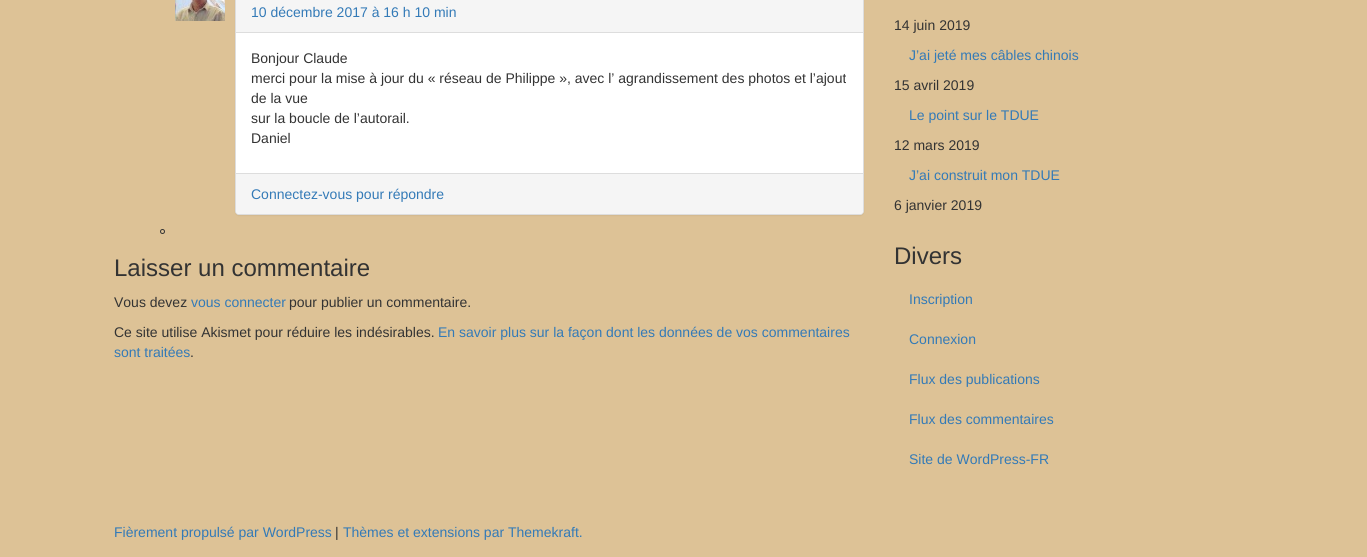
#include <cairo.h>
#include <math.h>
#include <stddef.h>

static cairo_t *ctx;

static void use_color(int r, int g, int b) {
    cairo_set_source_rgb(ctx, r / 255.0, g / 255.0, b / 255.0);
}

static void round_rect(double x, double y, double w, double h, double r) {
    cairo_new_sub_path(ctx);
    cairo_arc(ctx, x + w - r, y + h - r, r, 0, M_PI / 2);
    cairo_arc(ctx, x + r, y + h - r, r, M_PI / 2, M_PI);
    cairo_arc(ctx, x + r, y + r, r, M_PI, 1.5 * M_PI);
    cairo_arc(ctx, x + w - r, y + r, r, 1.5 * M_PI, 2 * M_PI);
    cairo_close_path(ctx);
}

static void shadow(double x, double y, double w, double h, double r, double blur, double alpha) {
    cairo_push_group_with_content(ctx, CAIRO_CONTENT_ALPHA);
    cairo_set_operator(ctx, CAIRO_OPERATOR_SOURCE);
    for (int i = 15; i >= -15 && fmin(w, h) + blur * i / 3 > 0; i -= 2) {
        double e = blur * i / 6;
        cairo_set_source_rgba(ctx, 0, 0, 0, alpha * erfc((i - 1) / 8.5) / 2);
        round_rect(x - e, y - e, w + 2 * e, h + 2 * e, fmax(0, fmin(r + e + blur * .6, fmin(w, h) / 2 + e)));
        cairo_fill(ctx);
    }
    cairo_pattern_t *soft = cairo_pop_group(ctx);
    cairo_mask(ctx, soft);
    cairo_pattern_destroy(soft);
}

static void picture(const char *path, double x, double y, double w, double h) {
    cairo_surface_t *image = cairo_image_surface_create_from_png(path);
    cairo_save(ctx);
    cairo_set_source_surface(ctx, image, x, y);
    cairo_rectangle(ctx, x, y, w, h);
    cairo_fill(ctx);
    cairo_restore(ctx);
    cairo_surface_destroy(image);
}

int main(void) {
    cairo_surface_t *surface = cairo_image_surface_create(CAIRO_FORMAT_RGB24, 1367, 557);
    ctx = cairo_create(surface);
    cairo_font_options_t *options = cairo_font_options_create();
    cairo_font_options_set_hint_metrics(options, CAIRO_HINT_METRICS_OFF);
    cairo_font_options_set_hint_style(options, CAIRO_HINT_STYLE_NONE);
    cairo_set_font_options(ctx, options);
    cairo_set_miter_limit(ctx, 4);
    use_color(221, 194, 150);
    cairo_paint(ctx);
    picture("img1.png", 175, 0, 50, 21);
    use_color(0, 0, 0);
    shadow(235, -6, 629, 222, 4, 0.5, 0.05);
    use_color(255, 255, 255);
    round_rect(235.5, -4.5, 628, 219, 3.5);
    cairo_fill_preserve(ctx);
    use_color(221, 221, 221);
    cairo_set_line_width(ctx, 1);
    cairo_stroke(ctx);
    use_color(245, 245, 245);
    cairo_rectangle(ctx, 236, 0, 627, 32);
    cairo_fill(ctx);
    use_color(221, 221, 221);
    cairo_rectangle(ctx, 236, 32, 627, 1);
    cairo_fill(ctx);
    cairo_select_font_face(ctx, "Liberation Sans", CAIRO_FONT_SLANT_NORMAL, CAIRO_FONT_WEIGHT_NORMAL);
    cairo_set_font_size(ctx, 14);
    use_color(51, 122, 183);
    cairo_move_to(ctx, 251, 17);
    cairo_show_text(ctx, "10 décembre 2017 à 16 h 10 min");
    use_color(51, 51, 51);
    cairo_move_to(ctx, 251, 63);
    cairo_show_text(ctx, "Bonjour Claude");
    cairo_move_to(ctx, 251, 83);
    cairo_show_text(ctx, "merci pour la mise à jour du « réseau de Philippe », avec l’ agrandissement des photos et l’ajout");
    cairo_move_to(ctx, 251, 103);
    cairo_show_text(ctx, "de la vue");
    cairo_move_to(ctx, 251, 123);
    cairo_show_text(ctx, "sur la boucle de l’autorail.");
    cairo_move_to(ctx, 251, 143);
    cairo_show_text(ctx, "Daniel");
    use_color(245, 245, 245);
    cairo_new_path(ctx);
    cairo_move_to(ctx, 236, 173);
    cairo_line_to(ctx, 863, 173);
    cairo_line_to(ctx, 863, 211);
    cairo_curve_to(ctx, 863, 212.5, 861.5, 214, 860, 214);
    cairo_line_to(ctx, 239, 214);
    cairo_curve_to(ctx, 237.5, 214, 236, 212.5, 236, 211);
    cairo_close_path(ctx);
    cairo_fill(ctx);
    use_color(221, 221, 221);
    cairo_rectangle(ctx, 236, 173, 627, 1);
    cairo_fill(ctx);
    use_color(51, 122, 183);
    cairo_move_to(ctx, 251, 199);
    cairo_show_text(ctx, "Connectez-vous pour répondre");
    cairo_new_path(ctx);
    cairo_arc(ctx, 162.5, 231.5, 2, 0, 2 * M_PI);
    use_color(51, 51, 51);
    cairo_stroke(ctx);
    cairo_set_font_size(ctx, 24);
    cairo_move_to(ctx, 114, 276);
    cairo_show_text(ctx, "Laisser un commentaire");
    cairo_set_font_size(ctx, 14);
    cairo_move_to(ctx, 114, 307);
    cairo_show_text(ctx, "Vous devez");
    use_color(51, 122, 183);
    cairo_move_to(ctx, 191, 307);
    cairo_show_text(ctx, "vous connecter");
    use_color(51, 51, 51);
    cairo_move_to(ctx, 289, 307);
    cairo_show_text(ctx, "pour publier un commentaire.");
    cairo_move_to(ctx, 114, 337);
    cairo_show_text(ctx, "Ce site utilise Akismet pour réduire les indésirables.");
    use_color(51, 122, 183);
    cairo_move_to(ctx, 438, 337);
    cairo_show_text(ctx, "En savoir plus sur la façon dont les données de vos commentaires");
    cairo_move_to(ctx, 114, 357);
    cairo_show_text(ctx, "sont traitées");
    use_color(51, 51, 51);
    cairo_move_to(ctx, 190, 357);
    cairo_show_text(ctx, ".");
    cairo_move_to(ctx, 894, 30);
    cairo_show_text(ctx, "14 juin 2019");
    use_color(51, 122, 183);
    cairo_move_to(ctx, 909, 60);
    cairo_show_text(ctx, "J’ai jeté mes câbles chinois");
    use_color(51, 51, 51);
    cairo_move_to(ctx, 894, 90);
    cairo_show_text(ctx, "15 avril 2019");
    use_color(51, 122, 183);
    cairo_move_to(ctx, 909, 120);
    cairo_show_text(ctx, "Le point sur le TDUE");
    use_color(51, 51, 51);
    cairo_move_to(ctx, 894, 150);
    cairo_show_text(ctx, "12 mars 2019");
    use_color(51, 122, 183);
    cairo_move_to(ctx, 909, 180);
    cairo_show_text(ctx, "J’ai construit mon TDUE");
    use_color(51, 51, 51);
    cairo_move_to(ctx, 894, 210);
    cairo_show_text(ctx, "6 janvier 2019");
    cairo_set_font_size(ctx, 24);
    cairo_move_to(ctx, 894, 264);
    cairo_show_text(ctx, "Divers");
    cairo_set_font_size(ctx, 14);
    use_color(51, 122, 183);
    cairo_move_to(ctx, 909, 304);
    cairo_show_text(ctx, "Inscription");
    cairo_move_to(ctx, 909, 344);
    cairo_show_text(ctx, "Connexion");
    cairo_move_to(ctx, 909, 384);
    cairo_show_text(ctx, "Flux des publications");
    cairo_move_to(ctx, 909, 424);
    cairo_show_text(ctx, "Flux des commentaires");
    cairo_move_to(ctx, 909, 464);
    cairo_show_text(ctx, "Site de WordPress-FR");
    cairo_move_to(ctx, 114, 537);
    cairo_show_text(ctx, "Fièrement propulsé par WordPress");
    use_color(51, 51, 51);
    cairo_move_to(ctx, 335, 537);
    cairo_show_text(ctx, "|");
    use_color(51, 122, 183);
    cairo_move_to(ctx, 343, 537);
    cairo_show_text(ctx, "Thèmes et extensions par Themekraft.");
    cairo_surface_write_to_png(surface, "result.png");
    cairo_font_options_destroy(options);
    cairo_destroy(ctx);
    cairo_surface_destroy(surface);
    return 0;
}
